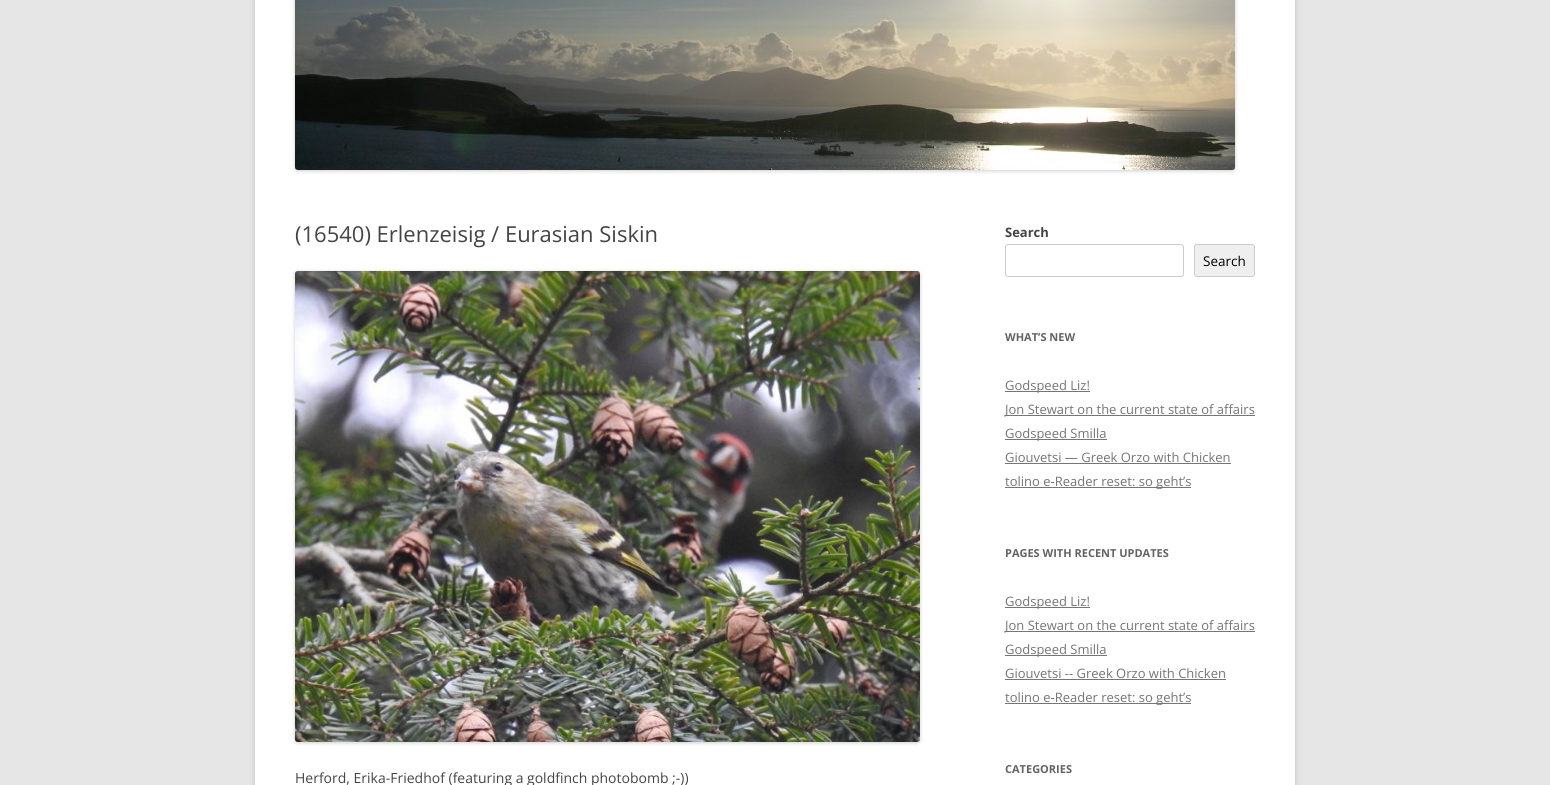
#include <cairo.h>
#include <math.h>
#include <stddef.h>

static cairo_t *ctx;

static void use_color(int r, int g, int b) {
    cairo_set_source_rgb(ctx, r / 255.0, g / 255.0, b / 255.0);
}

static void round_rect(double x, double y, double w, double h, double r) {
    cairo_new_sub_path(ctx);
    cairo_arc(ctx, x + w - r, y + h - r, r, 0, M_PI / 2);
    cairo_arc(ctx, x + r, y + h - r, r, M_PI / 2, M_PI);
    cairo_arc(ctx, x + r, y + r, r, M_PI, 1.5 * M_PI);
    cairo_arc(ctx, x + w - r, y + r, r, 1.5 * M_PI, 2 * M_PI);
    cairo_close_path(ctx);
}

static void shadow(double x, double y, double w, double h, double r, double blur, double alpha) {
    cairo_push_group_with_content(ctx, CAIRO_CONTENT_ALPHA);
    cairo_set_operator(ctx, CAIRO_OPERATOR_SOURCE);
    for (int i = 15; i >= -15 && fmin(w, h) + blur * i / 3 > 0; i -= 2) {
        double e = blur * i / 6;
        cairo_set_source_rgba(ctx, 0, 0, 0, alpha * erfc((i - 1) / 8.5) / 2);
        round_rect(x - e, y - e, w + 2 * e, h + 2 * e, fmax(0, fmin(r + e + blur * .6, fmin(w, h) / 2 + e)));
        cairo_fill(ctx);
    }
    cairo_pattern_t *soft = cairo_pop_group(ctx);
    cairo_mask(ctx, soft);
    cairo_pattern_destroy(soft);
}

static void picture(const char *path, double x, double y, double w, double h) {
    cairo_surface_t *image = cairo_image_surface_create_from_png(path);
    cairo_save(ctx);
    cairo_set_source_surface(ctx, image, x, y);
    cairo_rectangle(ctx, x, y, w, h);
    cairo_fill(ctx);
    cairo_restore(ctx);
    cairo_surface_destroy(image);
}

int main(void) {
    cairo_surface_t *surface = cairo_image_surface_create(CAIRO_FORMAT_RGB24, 1550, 785);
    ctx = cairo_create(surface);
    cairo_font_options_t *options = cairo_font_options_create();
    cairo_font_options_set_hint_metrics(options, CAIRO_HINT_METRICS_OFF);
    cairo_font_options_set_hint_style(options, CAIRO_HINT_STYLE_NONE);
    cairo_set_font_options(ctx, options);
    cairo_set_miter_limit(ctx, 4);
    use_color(230, 230, 230);
    cairo_paint(ctx);
    use_color(100, 100, 100);
    shadow(255, -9, 1040, 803, 0, 3, 0.3);
    use_color(255, 255, 255);
    cairo_rectangle(ctx, 255, 0, 1040, 785);
    cairo_fill(ctx);
    use_color(0, 0, 0);
    shadow(295, -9, 940, 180, 3, 2, 0.2);
    picture("img1.png", 295, 0, 940, 170);
    cairo_select_font_face(ctx, "Open Sans", CAIRO_FONT_SLANT_NORMAL, CAIRO_FONT_WEIGHT_NORMAL);
    cairo_set_font_size(ctx, 22);
    use_color(68, 68, 68);
    cairo_move_to(ctx, 295, 242);
    cairo_show_text(ctx, "(16540) Erlenzeisig / Eurasian Siskin");
    use_color(0, 0, 0);
    shadow(295, 272, 625, 471, 3, 2, 0.2);
    picture("img2.png", 295, 271, 625, 471);
    cairo_set_font_size(ctx, 14);
    use_color(68, 68, 68);
    cairo_move_to(ctx, 295, 783);
    cairo_show_text(ctx, "Herford, Erika-Friedhof (featuring a goldfinch photobomb ;-))");
    cairo_select_font_face(ctx, "Open Sans", CAIRO_FONT_SLANT_NORMAL, CAIRO_FONT_WEIGHT_BOLD);
    cairo_set_font_size(ctx, 13);
    cairo_move_to(ctx, 1005, 237);
    cairo_show_text(ctx, "Search");
    round_rect(1005.5, 244.5, 178, 32, 2.5);
    use_color(204, 204, 204);
    cairo_set_line_width(ctx, 1);
    cairo_stroke(ctx);
    use_color(239, 239, 239);
    round_rect(1194.5, 244.5, 60, 32, 2.5);
    cairo_fill_preserve(ctx);
    use_color(204, 204, 204);
    cairo_stroke(ctx);
    cairo_select_font_face(ctx, "Open Sans", CAIRO_FONT_SLANT_NORMAL, CAIRO_FONT_WEIGHT_NORMAL);
    cairo_set_font_size(ctx, 13.5);
    use_color(0, 0, 0);
    cairo_move_to(ctx, 1203, 266);
    cairo_show_text(ctx, "Search");
    cairo_select_font_face(ctx, "Open Sans", CAIRO_FONT_SLANT_NORMAL, CAIRO_FONT_WEIGHT_BOLD);
    cairo_set_font_size(ctx, 11);
    use_color(99, 99, 99);
    cairo_move_to(ctx, 1005, 341);
    cairo_show_text(ctx, "WHAT’S NEW");
    use_color(117, 117, 117);
    cairo_rectangle(ctx, 1005, 391, 85, 1);
    cairo_fill(ctx);
    cairo_select_font_face(ctx, "Open Sans", CAIRO_FONT_SLANT_NORMAL, CAIRO_FONT_WEIGHT_NORMAL);
    cairo_set_font_size(ctx, 13);
    cairo_move_to(ctx, 1005, 390);
    cairo_show_text(ctx, "Godspeed Liz!");
    cairo_rectangle(ctx, 1005, 415, 250, 1);
    cairo_fill(ctx);
    cairo_move_to(ctx, 1005, 414);
    cairo_show_text(ctx, "Jon Stewart on the current state of affairs");
    cairo_rectangle(ctx, 1005, 439, 102, 1);
    cairo_fill(ctx);
    cairo_move_to(ctx, 1005, 438);
    cairo_show_text(ctx, "Godspeed Smilla");
    cairo_move_to(ctx, 1005, 462);
    cairo_show_text(ctx, "Giouvetsi — Greek Orzo with Chicken");
    cairo_rectangle(ctx, 1005, 463, 226, 1);
    cairo_fill(ctx);
    cairo_rectangle(ctx, 1005, 487, 186, 1);
    cairo_fill(ctx);
    cairo_move_to(ctx, 1005, 486);
    cairo_show_text(ctx, "tolino e-Reader reset: so geht’s");
    cairo_select_font_face(ctx, "Open Sans", CAIRO_FONT_SLANT_NORMAL, CAIRO_FONT_WEIGHT_BOLD);
    cairo_set_font_size(ctx, 11);
    use_color(99, 99, 99);
    cairo_move_to(ctx, 1005, 557);
    cairo_show_text(ctx, "PAGES WITH RECENT UPDATES");
    use_color(117, 117, 117);
    cairo_rectangle(ctx, 1005, 607, 85, 1);
    cairo_fill(ctx);
    cairo_select_font_face(ctx, "Open Sans", CAIRO_FONT_SLANT_NORMAL, CAIRO_FONT_WEIGHT_NORMAL);
    cairo_set_font_size(ctx, 13);
    cairo_move_to(ctx, 1005, 606);
    cairo_show_text(ctx, "Godspeed Liz!");
    cairo_rectangle(ctx, 1005, 631, 250, 1);
    cairo_fill(ctx);
    cairo_move_to(ctx, 1005, 630);
    cairo_show_text(ctx, "Jon Stewart on the current state of affairs");
    cairo_rectangle(ctx, 1005, 655, 102, 1);
    cairo_fill(ctx);
    cairo_move_to(ctx, 1005, 654);
    cairo_show_text(ctx, "Godspeed Smilla");
    cairo_move_to(ctx, 1005, 678);
    cairo_show_text(ctx, "Giouvetsi -- Greek Orzo with Chicken");
    cairo_rectangle(ctx, 1005, 679, 221, 1);
    cairo_fill(ctx);
    cairo_rectangle(ctx, 1005, 703, 186, 1);
    cairo_fill(ctx);
    cairo_move_to(ctx, 1005, 702);
    cairo_show_text(ctx, "tolino e-Reader reset: so geht’s");
    cairo_select_font_face(ctx, "Open Sans", CAIRO_FONT_SLANT_NORMAL, CAIRO_FONT_WEIGHT_BOLD);
    cairo_set_font_size(ctx, 11);
    use_color(99, 99, 99);
    cairo_move_to(ctx, 1005, 773);
    cairo_show_text(ctx, "CATEGORIES");
    cairo_surface_write_to_png(surface, "result.png");
    cairo_font_options_destroy(options);
    cairo_destroy(ctx);
    cairo_surface_destroy(surface);
    return 0;
}
